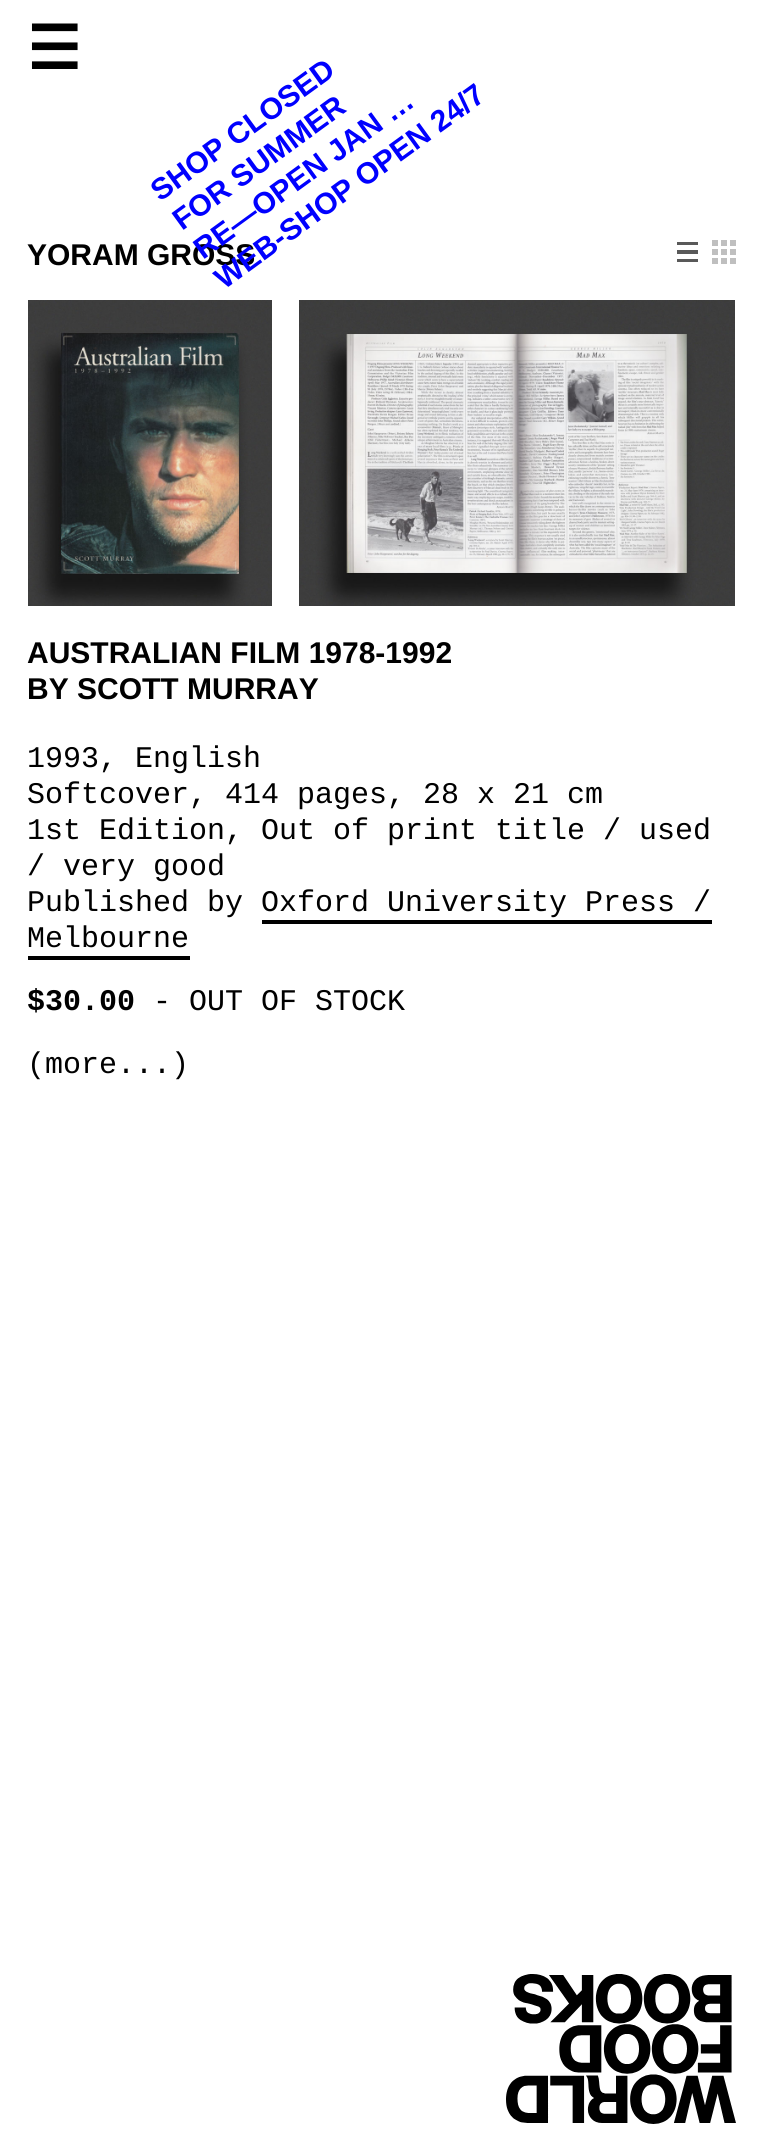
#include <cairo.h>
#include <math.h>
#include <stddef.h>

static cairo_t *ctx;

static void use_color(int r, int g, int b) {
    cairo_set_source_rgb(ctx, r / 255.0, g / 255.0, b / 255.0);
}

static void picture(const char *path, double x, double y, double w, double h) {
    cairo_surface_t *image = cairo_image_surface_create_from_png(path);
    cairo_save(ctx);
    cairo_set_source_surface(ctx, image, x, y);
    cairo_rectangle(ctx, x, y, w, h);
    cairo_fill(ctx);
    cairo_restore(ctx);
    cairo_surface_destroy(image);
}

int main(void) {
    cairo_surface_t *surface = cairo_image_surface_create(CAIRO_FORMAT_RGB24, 762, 2149);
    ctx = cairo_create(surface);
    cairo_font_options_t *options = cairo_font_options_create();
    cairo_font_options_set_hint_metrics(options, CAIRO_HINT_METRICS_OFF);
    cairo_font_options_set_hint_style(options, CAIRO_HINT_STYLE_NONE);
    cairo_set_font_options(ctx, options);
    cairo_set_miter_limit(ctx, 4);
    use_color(255, 255, 255);
    cairo_paint(ctx);
    cairo_select_font_face(ctx, "DejaVu Sans", CAIRO_FONT_SLANT_NORMAL, CAIRO_FONT_WEIGHT_BOLD);
    cairo_set_font_size(ctx, 60);
    use_color(0, 0, 0);
    cairo_move_to(ctx, 27, 69);
    cairo_show_text(ctx, "☰");
    cairo_select_font_face(ctx, "Liberation Sans", CAIRO_FONT_SLANT_NORMAL, CAIRO_FONT_WEIGHT_BOLD);
    cairo_set_font_size(ctx, 30);
    use_color(0, 0, 255);
    cairo_save(ctx);
    cairo_translate(ctx, 160, 202);
    cairo_rotate(ctx, -36 * M_PI / 180);
    cairo_move_to(ctx, 0, 0);
    cairo_show_text(ctx, "SHOP CLOSED");
    cairo_restore(ctx);
    cairo_save(ctx);
    cairo_translate(ctx, 182, 231);
    cairo_rotate(ctx, -36 * M_PI / 180);
    cairo_move_to(ctx, 0, 0);
    cairo_show_text(ctx, "FOR SUMMER");
    cairo_restore(ctx);
    use_color(0, 0, 0);
    cairo_move_to(ctx, 27, 265);
    cairo_show_text(ctx, "YORAM GROSS");
    use_color(0, 0, 255);
    cairo_save(ctx);
    cairo_translate(ctx, 203, 260);
    cairo_rotate(ctx, -36 * M_PI / 180);
    cairo_move_to(ctx, 0, 0);
    cairo_show_text(ctx, "RE—OPEN JAN …");
    cairo_restore(ctx);
    cairo_save(ctx);
    cairo_translate(ctx, 224, 290);
    cairo_rotate(ctx, -36 * M_PI / 180);
    cairo_move_to(ctx, 0, 0);
    cairo_show_text(ctx, "WEB-SHOP OPEN 24/7");
    cairo_restore(ctx);
    use_color(89, 89, 89);
    cairo_rectangle(ctx, 677, 242, 21, 3);
    cairo_fill(ctx);
    cairo_rectangle(ctx, 677, 250, 21, 4);
    cairo_fill(ctx);
    cairo_rectangle(ctx, 677, 259, 21, 3);
    cairo_fill(ctx);
    picture("img1.png", 712, 240, 24, 24);
    picture("img2.png", 28, 300, 244, 306);
    picture("img3.png", 299, 300, 436, 306);
    use_color(0, 0, 0);
    cairo_move_to(ctx, 27, 663);
    cairo_show_text(ctx, "AUSTRALIAN FILM 1978-1992");
    cairo_move_to(ctx, 27, 699);
    cairo_show_text(ctx, "BY SCOTT MURRAY");
    cairo_select_font_face(ctx, "Liberation Mono", CAIRO_FONT_SLANT_NORMAL, CAIRO_FONT_WEIGHT_NORMAL);
    cairo_move_to(ctx, 27, 767);
    cairo_show_text(ctx, "1993, English");
    cairo_move_to(ctx, 27, 803);
    cairo_show_text(ctx, "Softcover, 414 pages, 28 x 21 cm");
    cairo_move_to(ctx, 27, 839);
    cairo_show_text(ctx, "1st Edition, Out of print title / used");
    cairo_move_to(ctx, 27, 875);
    cairo_show_text(ctx, "/ very good");
    cairo_move_to(ctx, 27, 911);
    cairo_show_text(ctx, "Published by Oxford University Press /");
    cairo_move_to(ctx, 27, 947);
    cairo_show_text(ctx, "Melbourne");
    cairo_rectangle(ctx, 262, 920, 450, 4);
    cairo_fill(ctx);
    cairo_rectangle(ctx, 28, 956, 162, 4);
    cairo_fill(ctx);
    cairo_select_font_face(ctx, "Liberation Mono", CAIRO_FONT_SLANT_NORMAL, CAIRO_FONT_WEIGHT_BOLD);
    cairo_move_to(ctx, 27, 1010);
    cairo_show_text(ctx, "$30.00");
    cairo_select_font_face(ctx, "Liberation Mono", CAIRO_FONT_SLANT_NORMAL, CAIRO_FONT_WEIGHT_NORMAL);
    cairo_move_to(ctx, 153, 1010);
    cairo_show_text(ctx, "- OUT OF STOCK");
    cairo_move_to(ctx, 27, 1073);
    cairo_show_text(ctx, "(more...)");
    picture("img4.png", 506, 1974, 230, 150);
    cairo_surface_write_to_png(surface, "result.png");
    cairo_font_options_destroy(options);
    cairo_destroy(ctx);
    cairo_surface_destroy(surface);
    return 0;
}
